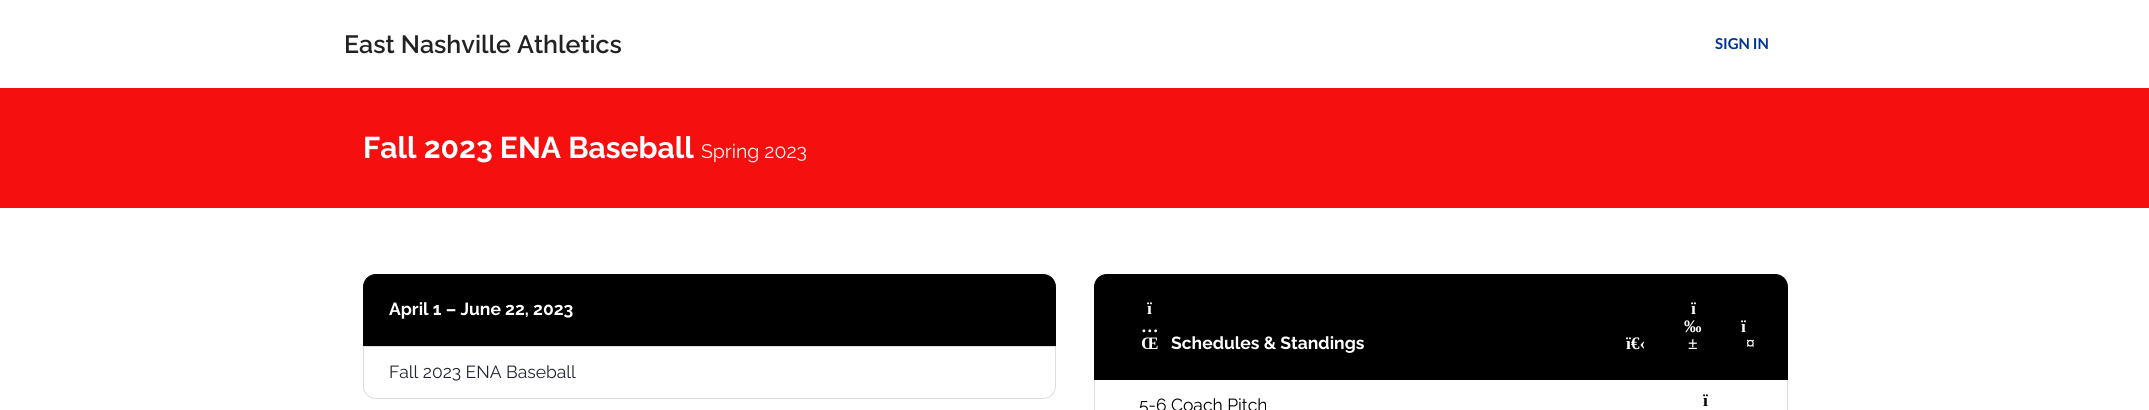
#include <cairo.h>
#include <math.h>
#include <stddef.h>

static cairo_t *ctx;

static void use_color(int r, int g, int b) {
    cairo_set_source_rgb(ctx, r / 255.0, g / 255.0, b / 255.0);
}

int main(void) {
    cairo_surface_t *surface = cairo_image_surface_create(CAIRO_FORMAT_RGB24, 2149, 410);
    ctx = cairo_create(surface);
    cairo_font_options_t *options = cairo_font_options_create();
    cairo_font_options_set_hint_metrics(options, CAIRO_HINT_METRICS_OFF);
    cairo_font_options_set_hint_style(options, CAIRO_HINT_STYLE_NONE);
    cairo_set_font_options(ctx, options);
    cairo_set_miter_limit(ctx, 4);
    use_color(255, 255, 255);
    cairo_paint(ctx);
    cairo_select_font_face(ctx, "Raleway SemiBold", CAIRO_FONT_SLANT_NORMAL, CAIRO_FONT_WEIGHT_NORMAL);
    cairo_set_font_size(ctx, 25);
    use_color(34, 34, 34);
    cairo_move_to(ctx, 344, 53);
    cairo_show_text(ctx, "East Nashville Athletics");
    cairo_select_font_face(ctx, "Lato", CAIRO_FONT_SLANT_NORMAL, CAIRO_FONT_WEIGHT_BOLD);
    cairo_set_font_size(ctx, 15);
    use_color(0, 51, 153);
    cairo_move_to(ctx, 1715, 49);
    cairo_show_text(ctx, "SIGN IN");
    use_color(245, 15, 15);
    cairo_rectangle(ctx, 0, 88, 2149, 120);
    cairo_fill(ctx);
    cairo_select_font_face(ctx, "Raleway", CAIRO_FONT_SLANT_NORMAL, CAIRO_FONT_WEIGHT_BOLD);
    cairo_set_font_size(ctx, 30);
    use_color(255, 255, 255);
    cairo_move_to(ctx, 363, 158);
    cairo_show_text(ctx, "Fall 2023 ENA Baseball");
    cairo_select_font_face(ctx, "Raleway", CAIRO_FONT_SLANT_NORMAL, CAIRO_FONT_WEIGHT_NORMAL);
    cairo_set_font_size(ctx, 19.5);
    use_color(244, 249, 238);
    cairo_move_to(ctx, 701, 158);
    cairo_show_text(ctx, "Spring 2023");
    use_color(0, 0, 0);
    cairo_new_path(ctx);
    cairo_move_to(ctx, 376, 274.5);
    cairo_line_to(ctx, 1043, 274.5);
    cairo_curve_to(ctx, 1050, 274.5, 1055.5, 280, 1055.5, 287);
    cairo_line_to(ctx, 1055.5, 345.5);
    cairo_line_to(ctx, 363.5, 345.5);
    cairo_line_to(ctx, 363.5, 287);
    cairo_curve_to(ctx, 363.5, 280, 369, 274.5, 376, 274.5);
    cairo_close_path(ctx);
    cairo_fill_preserve(ctx);
    cairo_set_line_width(ctx, 1);
    cairo_stroke(ctx);
    cairo_select_font_face(ctx, "Raleway", CAIRO_FONT_SLANT_NORMAL, CAIRO_FONT_WEIGHT_BOLD);
    cairo_set_font_size(ctx, 17.5);
    use_color(255, 255, 255);
    cairo_move_to(ctx, 389, 315);
    cairo_show_text(ctx, "April 1 – June 22, 2023");
    cairo_new_path(ctx);
    cairo_move_to(ctx, 363.5, 346.5);
    cairo_line_to(ctx, 1055.5, 346.5);
    cairo_line_to(ctx, 1055.5, 386);
    cairo_curve_to(ctx, 1055.5, 393, 1050, 398.5, 1043, 398.5);
    cairo_line_to(ctx, 376, 398.5);
    cairo_curve_to(ctx, 369, 398.5, 363.5, 393, 363.5, 386);
    cairo_close_path(ctx);
    use_color(221, 221, 221);
    cairo_stroke(ctx);
    cairo_select_font_face(ctx, "Raleway", CAIRO_FONT_SLANT_NORMAL, CAIRO_FONT_WEIGHT_NORMAL);
    use_color(32, 37, 47);
    cairo_move_to(ctx, 389, 378);
    cairo_show_text(ctx, "Fall 2023 ENA Baseball");
    cairo_rectangle(ctx, 1094.5, 379.5, 693, 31);
    use_color(221, 221, 221);
    cairo_stroke(ctx);
    use_color(0, 0, 0);
    cairo_new_path(ctx);
    cairo_move_to(ctx, 1107, 274.5);
    cairo_line_to(ctx, 1775, 274.5);
    cairo_curve_to(ctx, 1782, 274.5, 1787.5, 280, 1787.5, 287);
    cairo_line_to(ctx, 1787.5, 379.5);
    cairo_line_to(ctx, 1094.5, 379.5);
    cairo_line_to(ctx, 1094.5, 287);
    cairo_curve_to(ctx, 1094.5, 280, 1100, 274.5, 1107, 274.5);
    cairo_close_path(ctx);
    cairo_fill_preserve(ctx);
    cairo_stroke(ctx);
    cairo_select_font_face(ctx, "Liberation Serif", CAIRO_FONT_SLANT_NORMAL, CAIRO_FONT_WEIGHT_BOLD);
    use_color(255, 255, 255);
    cairo_move_to(ctx, 1147, 314);
    cairo_show_text(ctx, "ï");
    cairo_move_to(ctx, 1141, 332);
    cairo_show_text(ctx, "…");
    cairo_move_to(ctx, 1141, 349);
    cairo_show_text(ctx, "Œ");
    cairo_select_font_face(ctx, "Raleway", CAIRO_FONT_SLANT_NORMAL, CAIRO_FONT_WEIGHT_BOLD);
    cairo_move_to(ctx, 1171, 349);
    cairo_show_text(ctx, "Schedules & Standings");
    cairo_select_font_face(ctx, "Liberation Serif", CAIRO_FONT_SLANT_NORMAL, CAIRO_FONT_WEIGHT_BOLD);
    cairo_move_to(ctx, 1626, 349);
    cairo_show_text(ctx, "ï€‹");
    cairo_move_to(ctx, 1691, 314);
    cairo_show_text(ctx, "ï");
    cairo_move_to(ctx, 1684, 332);
    cairo_show_text(ctx, "‰");
    cairo_move_to(ctx, 1688, 349);
    cairo_show_text(ctx, "±");
    cairo_move_to(ctx, 1741, 332);
    cairo_show_text(ctx, "ï");
    cairo_move_to(ctx, 1746, 349);
    cairo_show_text(ctx, "¤");
    cairo_select_font_face(ctx, "Raleway", CAIRO_FONT_SLANT_NORMAL, CAIRO_FONT_WEIGHT_NORMAL);
    use_color(0, 0, 0);
    cairo_move_to(ctx, 1139, 411);
    cairo_show_text(ctx, "5-6 Coach Pitch");
    cairo_select_font_face(ctx, "Liberation Serif", CAIRO_FONT_SLANT_NORMAL, CAIRO_FONT_WEIGHT_BOLD);
    cairo_move_to(ctx, 1703, 406);
    cairo_show_text(ctx, "ï");
    cairo_surface_write_to_png(surface, "result.png");
    cairo_font_options_destroy(options);
    cairo_destroy(ctx);
    cairo_surface_destroy(surface);
    return 0;
}
